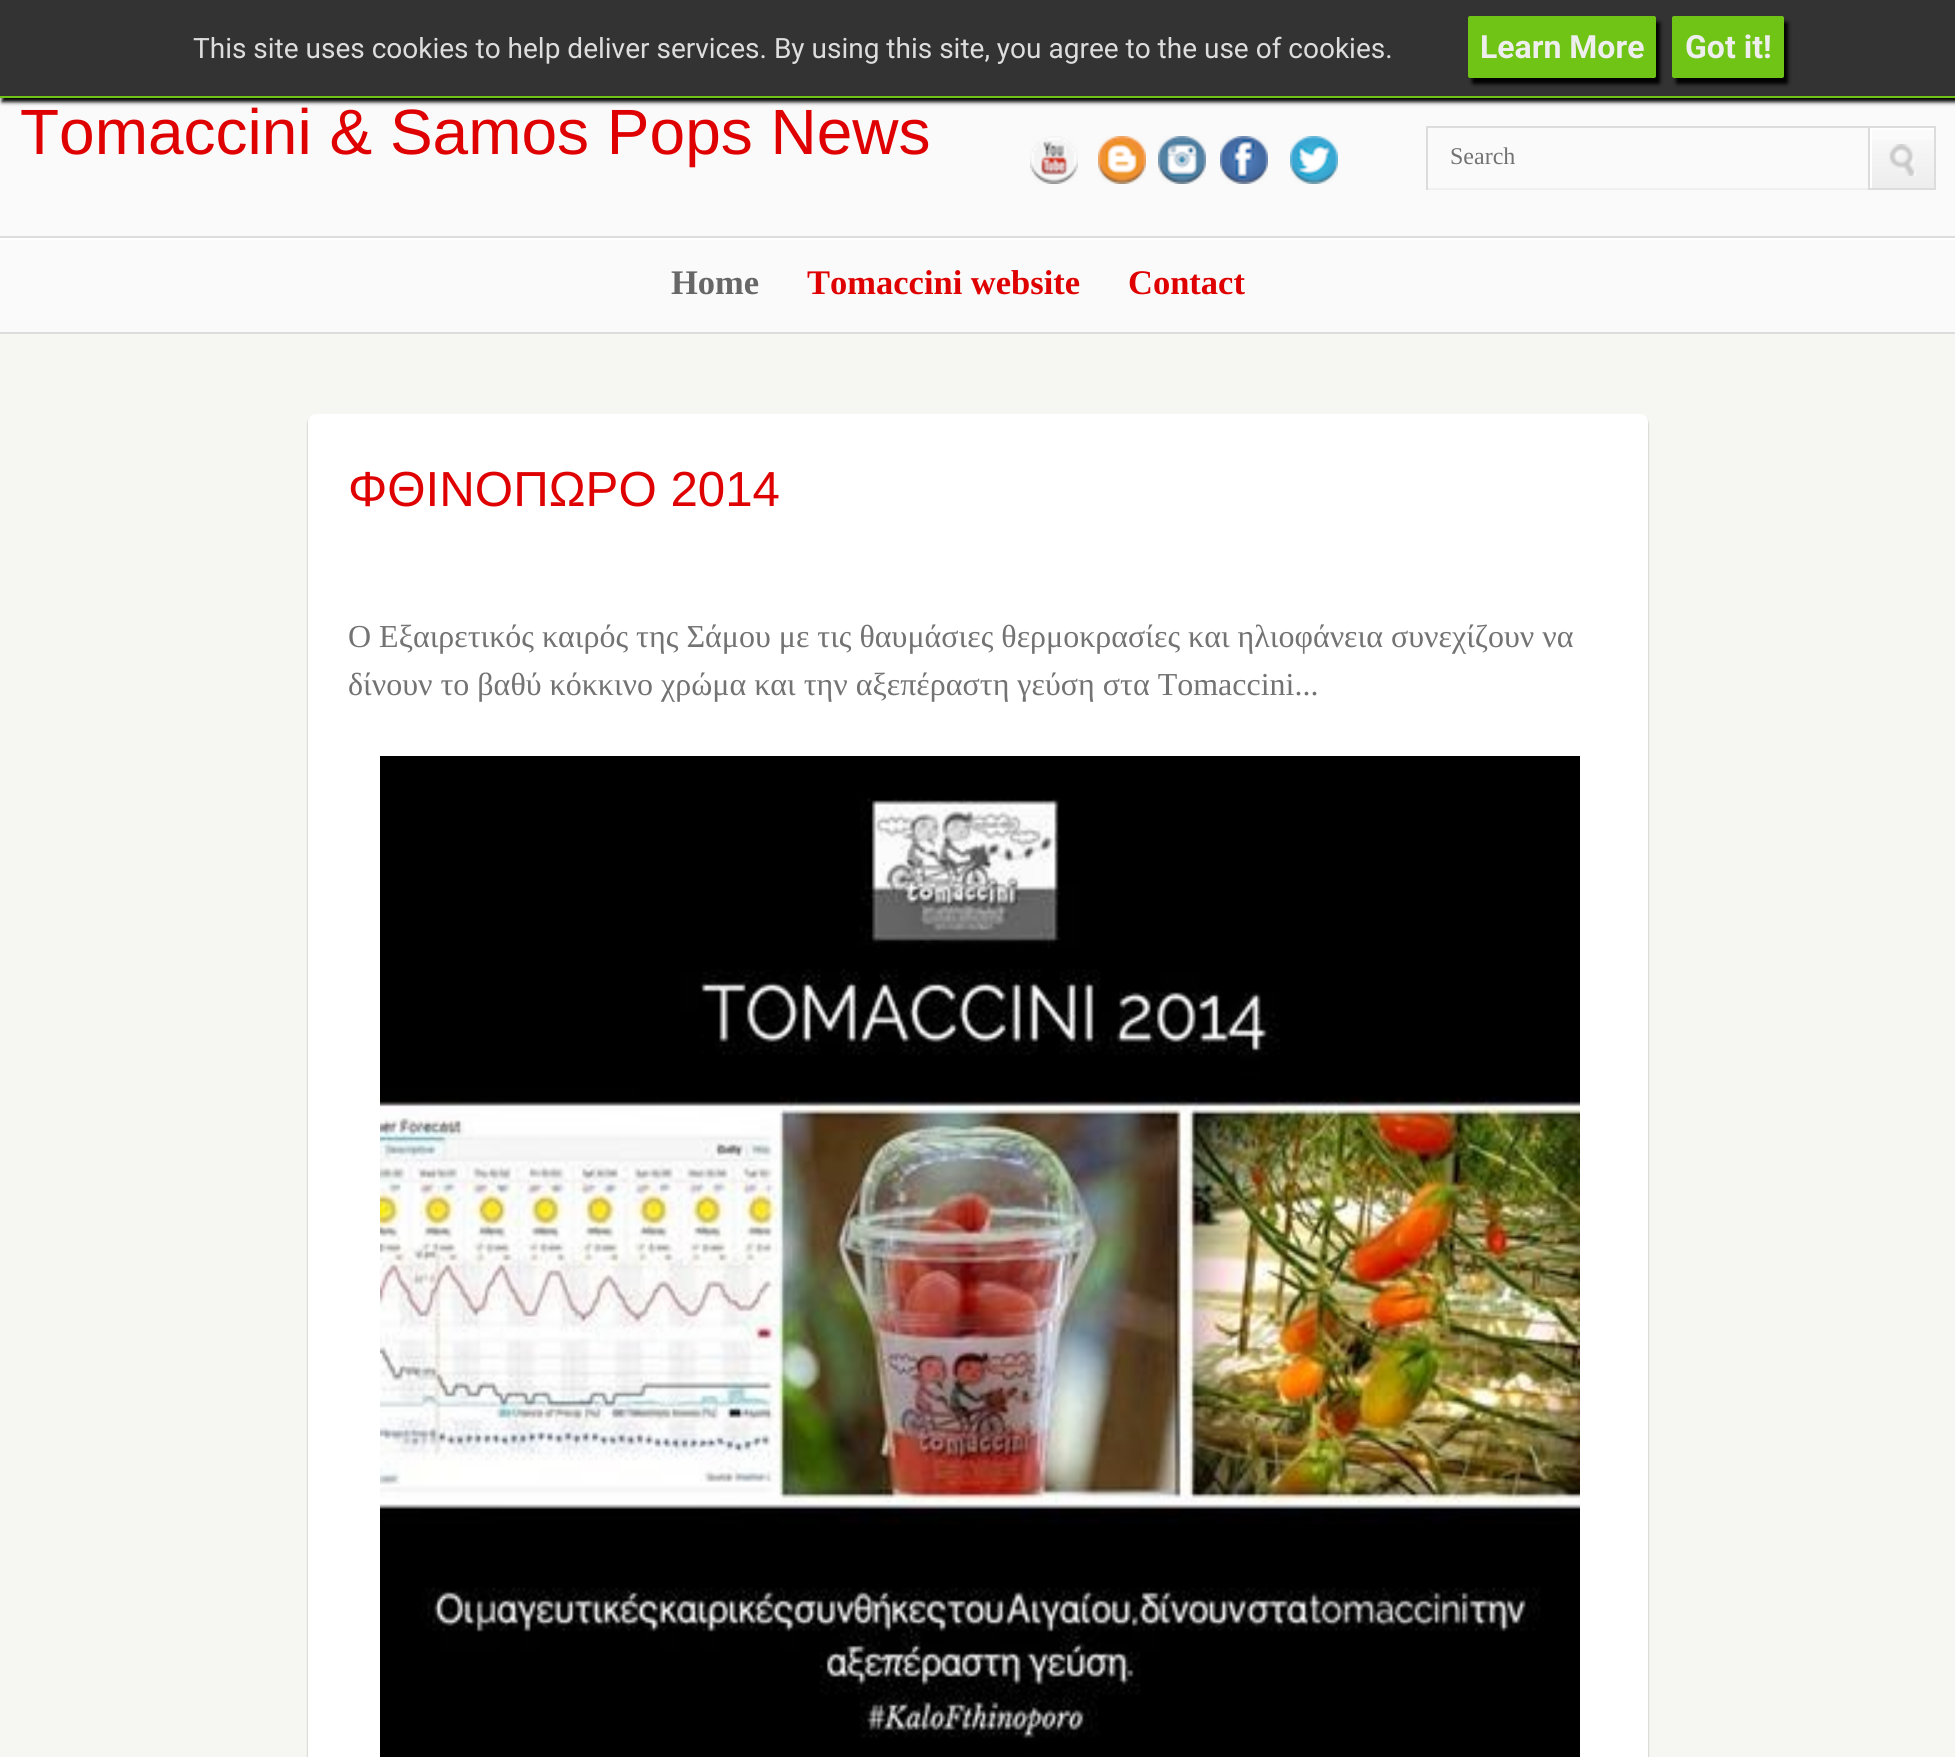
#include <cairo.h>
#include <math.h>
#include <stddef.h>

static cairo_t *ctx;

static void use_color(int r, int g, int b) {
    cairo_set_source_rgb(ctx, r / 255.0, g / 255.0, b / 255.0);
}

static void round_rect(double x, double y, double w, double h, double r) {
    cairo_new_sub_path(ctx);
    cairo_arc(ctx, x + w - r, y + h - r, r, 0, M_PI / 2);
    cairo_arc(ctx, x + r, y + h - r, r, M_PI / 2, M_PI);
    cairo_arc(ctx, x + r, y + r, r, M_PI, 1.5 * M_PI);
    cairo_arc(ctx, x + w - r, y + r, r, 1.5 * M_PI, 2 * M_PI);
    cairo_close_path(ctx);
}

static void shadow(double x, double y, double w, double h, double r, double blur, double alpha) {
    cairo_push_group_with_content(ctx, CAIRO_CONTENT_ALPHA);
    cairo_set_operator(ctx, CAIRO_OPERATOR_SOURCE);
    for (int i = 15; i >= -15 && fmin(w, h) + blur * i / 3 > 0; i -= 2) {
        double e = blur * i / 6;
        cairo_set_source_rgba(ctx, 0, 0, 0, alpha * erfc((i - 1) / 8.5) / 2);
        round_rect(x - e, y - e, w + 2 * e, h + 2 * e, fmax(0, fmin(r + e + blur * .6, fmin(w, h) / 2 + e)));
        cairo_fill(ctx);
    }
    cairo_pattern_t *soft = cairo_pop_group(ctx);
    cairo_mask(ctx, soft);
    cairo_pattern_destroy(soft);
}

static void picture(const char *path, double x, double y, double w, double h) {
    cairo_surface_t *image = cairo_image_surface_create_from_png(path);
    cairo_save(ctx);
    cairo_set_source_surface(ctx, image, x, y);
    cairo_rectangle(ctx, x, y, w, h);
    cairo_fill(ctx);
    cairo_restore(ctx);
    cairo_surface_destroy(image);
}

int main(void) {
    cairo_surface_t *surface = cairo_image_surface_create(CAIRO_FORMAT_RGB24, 1955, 1757);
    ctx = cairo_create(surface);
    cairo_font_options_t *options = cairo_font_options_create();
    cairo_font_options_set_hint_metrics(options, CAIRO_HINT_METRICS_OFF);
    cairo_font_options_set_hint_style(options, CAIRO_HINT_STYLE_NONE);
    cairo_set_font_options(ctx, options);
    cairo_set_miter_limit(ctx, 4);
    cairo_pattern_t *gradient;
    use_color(246, 246, 243);
    cairo_paint(ctx);
    use_color(250, 250, 250);
    cairo_rectangle(ctx, 0, 98, 1955, 234);
    cairo_fill(ctx);
    use_color(0, 0, 0);
    shadow(2, 4, 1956, 98, 0, 2, 1);
    use_color(51, 51, 51);
    cairo_rectangle(ctx, 0, 0, 1955, 96);
    cairo_fill(ctx);
    use_color(111, 196, 21);
    cairo_rectangle(ctx, 0, 96, 1955, 2);
    cairo_fill(ctx);
    cairo_select_font_face(ctx, "Roboto", CAIRO_FONT_SLANT_NORMAL, CAIRO_FONT_WEIGHT_NORMAL);
    cairo_set_font_size(ctx, 28);
    use_color(221, 221, 221);
    cairo_move_to(ctx, 193, 58);
    cairo_show_text(ctx, "This site uses cookies to help deliver services. By using this site, you agree to the use of cookies.");
    use_color(0, 0, 0);
    shadow(1472, 22, 188, 62, 2, 2, 1);
    use_color(111, 196, 21);
    round_rect(1468, 16, 188, 62, 2);
    cairo_fill(ctx);
    cairo_select_font_face(ctx, "Roboto", CAIRO_FONT_SLANT_NORMAL, CAIRO_FONT_WEIGHT_BOLD);
    cairo_set_font_size(ctx, 32);
    use_color(238, 238, 238);
    cairo_move_to(ctx, 1480, 58);
    cairo_show_text(ctx, "Learn More");
    use_color(0, 0, 0);
    shadow(1676, 22, 112, 62, 2, 2, 1);
    use_color(111, 196, 21);
    round_rect(1672, 16, 112, 62, 2);
    cairo_fill(ctx);
    use_color(238, 238, 238);
    cairo_move_to(ctx, 1685, 58);
    cairo_show_text(ctx, "Got it!");
    use_color(221, 221, 221);
    cairo_rectangle(ctx, 0, 236, 1955, 2);
    cairo_fill(ctx);
    cairo_select_font_face(ctx, "Liberation Sans", CAIRO_FONT_SLANT_NORMAL, CAIRO_FONT_WEIGHT_NORMAL);
    cairo_set_font_size(ctx, 64);
    use_color(223, 1, 1);
    cairo_move_to(ctx, 20, 154);
    cairo_show_text(ctx, "Tomaccini & Samos Pops News");
    picture("img1.png", 1030, 136, 48, 48);
    picture("img2.png", 1098, 136, 48, 48);
    picture("img3.png", 1158, 136, 48, 48);
    picture("img4.png", 1220, 136, 48, 48);
    picture("img5.png", 1290, 136, 48, 48);
    use_color(220, 220, 220);
    cairo_rectangle(ctx, 1426, 126, 442, 2);
    cairo_fill(ctx);
    use_color(240, 240, 240);
    cairo_rectangle(ctx, 1426, 188, 442, 2);
    cairo_fill(ctx);
    use_color(220, 220, 220);
    cairo_rectangle(ctx, 1426, 126, 2, 64);
    cairo_fill(ctx);
    gradient = cairo_pattern_create_linear(1870, 188, 1870, 128);
    cairo_pattern_add_color_stop_rgba(gradient, 0, 0.929, 0.929, 0.929, 1);
    cairo_pattern_add_color_stop_rgba(gradient, 1, 0.98, 0.98, 0.98, 1);
    cairo_set_source(ctx, gradient);
    cairo_pattern_destroy(gradient);
    cairo_rectangle(ctx, 1872, 140, 62, 48);
    cairo_fill(ctx);
    cairo_save(ctx);
    cairo_rectangle(ctx, 1870, 128, 64, 60);
    cairo_clip(ctx);
    use_color(255, 255, 255);
    cairo_set_fill_rule(ctx, CAIRO_FILL_RULE_EVEN_ODD);
    cairo_new_path(ctx);
    cairo_move_to(ctx, 1672, -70);
    cairo_line_to(ctx, 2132, -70);
    cairo_line_to(ctx, 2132, 386);
    cairo_line_to(ctx, 1672, 386);
    cairo_close_path(ctx);
    cairo_move_to(ctx, 1872, 130);
    cairo_line_to(ctx, 1936, 130);
    cairo_line_to(ctx, 1936, 190);
    cairo_line_to(ctx, 1872, 190);
    cairo_close_path(ctx);
    cairo_fill(ctx);
    cairo_restore(ctx);
    cairo_rectangle(ctx, 1869, 127, 66, 62);
    use_color(220, 220, 220);
    cairo_stroke(ctx);
    picture("img6.png", 1889, 144, 27, 32);
    cairo_select_font_face(ctx, "Liberation Serif", CAIRO_FONT_SLANT_NORMAL, CAIRO_FONT_WEIGHT_NORMAL);
    cairo_set_font_size(ctx, 24);
    use_color(115, 115, 115);
    cairo_move_to(ctx, 1450, 164);
    cairo_show_text(ctx, "Search");
    use_color(255, 255, 255);
    cairo_rectangle(ctx, 0, 238, 1955, 2);
    cairo_fill(ctx);
    use_color(221, 221, 221);
    cairo_rectangle(ctx, 0, 332, 1955, 2);
    cairo_fill(ctx);
    cairo_select_font_face(ctx, "Liberation Serif", CAIRO_FONT_SLANT_NORMAL, CAIRO_FONT_WEIGHT_BOLD);
    cairo_set_font_size(ctx, 34.5);
    use_color(103, 103, 103);
    cairo_move_to(ctx, 671, 294);
    cairo_show_text(ctx, "Home");
    use_color(223, 1, 1);
    cairo_move_to(ctx, 807, 294);
    cairo_show_text(ctx, "Tomaccini website");
    cairo_move_to(ctx, 1128, 294);
    cairo_show_text(ctx, "Contact");
    use_color(0, 0, 0);
    shadow(308, 416, 1340, 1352, 8, 1, 0.31);
    use_color(255, 255, 255);
    round_rect(308, 414, 1340, 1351, 8);
    cairo_fill(ctx);
    cairo_select_font_face(ctx, "Liberation Sans", CAIRO_FONT_SLANT_NORMAL, CAIRO_FONT_WEIGHT_NORMAL);
    cairo_set_font_size(ctx, 49.25);
    use_color(223, 1, 1);
    cairo_move_to(ctx, 348, 506);
    cairo_show_text(ctx, "ΦΘΙΝΟΠΩΡΟ 2014");
    cairo_select_font_face(ctx, "Liberation Serif", CAIRO_FONT_SLANT_NORMAL, CAIRO_FONT_WEIGHT_NORMAL);
    cairo_set_font_size(ctx, 32);
    use_color(115, 115, 115);
    cairo_move_to(ctx, 348, 647);
    cairo_show_text(ctx, "Ο Εξαιρετικός καιρός της Σάμου με τις θαυμάσιες θερμοκρασίες και ηλιοφάνεια συνεχίζουν να");
    cairo_move_to(ctx, 348, 695);
    cairo_show_text(ctx, "δίνουν τo βαθύ κόκκινο χρώμα και την αξεπέραστη γεύση στα Tomaccini...");
    picture("img7.png", 380, 756, 1200, 1001);
    cairo_surface_write_to_png(surface, "result.png");
    cairo_font_options_destroy(options);
    cairo_destroy(ctx);
    cairo_surface_destroy(surface);
    return 0;
}
